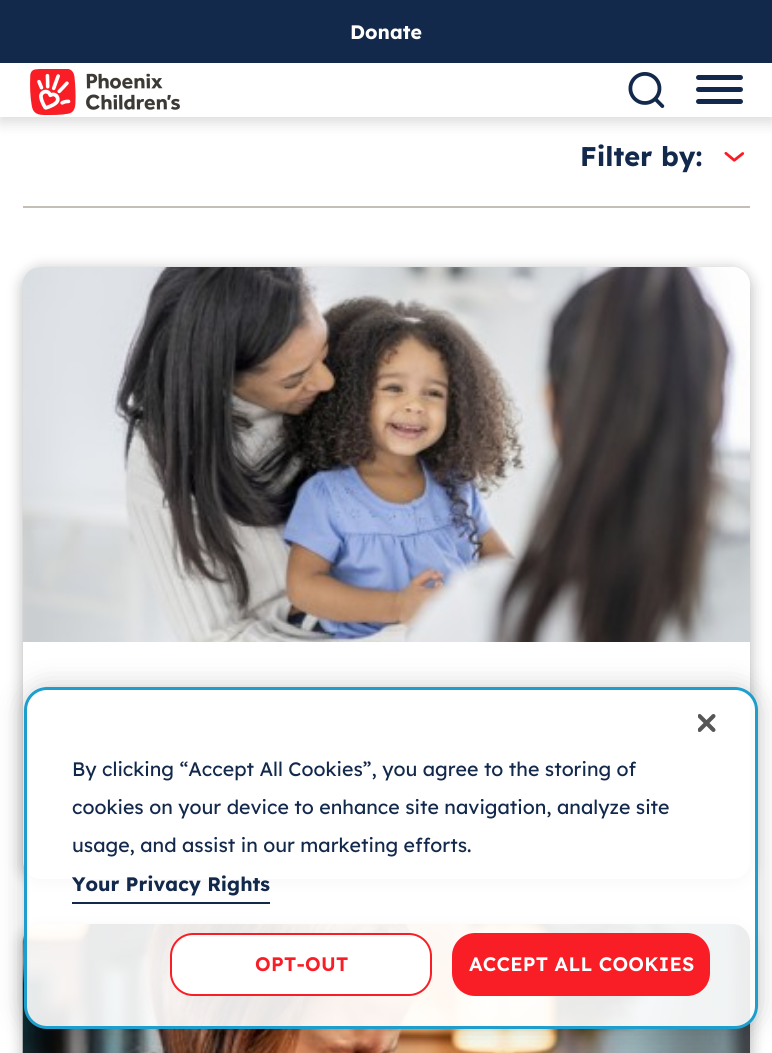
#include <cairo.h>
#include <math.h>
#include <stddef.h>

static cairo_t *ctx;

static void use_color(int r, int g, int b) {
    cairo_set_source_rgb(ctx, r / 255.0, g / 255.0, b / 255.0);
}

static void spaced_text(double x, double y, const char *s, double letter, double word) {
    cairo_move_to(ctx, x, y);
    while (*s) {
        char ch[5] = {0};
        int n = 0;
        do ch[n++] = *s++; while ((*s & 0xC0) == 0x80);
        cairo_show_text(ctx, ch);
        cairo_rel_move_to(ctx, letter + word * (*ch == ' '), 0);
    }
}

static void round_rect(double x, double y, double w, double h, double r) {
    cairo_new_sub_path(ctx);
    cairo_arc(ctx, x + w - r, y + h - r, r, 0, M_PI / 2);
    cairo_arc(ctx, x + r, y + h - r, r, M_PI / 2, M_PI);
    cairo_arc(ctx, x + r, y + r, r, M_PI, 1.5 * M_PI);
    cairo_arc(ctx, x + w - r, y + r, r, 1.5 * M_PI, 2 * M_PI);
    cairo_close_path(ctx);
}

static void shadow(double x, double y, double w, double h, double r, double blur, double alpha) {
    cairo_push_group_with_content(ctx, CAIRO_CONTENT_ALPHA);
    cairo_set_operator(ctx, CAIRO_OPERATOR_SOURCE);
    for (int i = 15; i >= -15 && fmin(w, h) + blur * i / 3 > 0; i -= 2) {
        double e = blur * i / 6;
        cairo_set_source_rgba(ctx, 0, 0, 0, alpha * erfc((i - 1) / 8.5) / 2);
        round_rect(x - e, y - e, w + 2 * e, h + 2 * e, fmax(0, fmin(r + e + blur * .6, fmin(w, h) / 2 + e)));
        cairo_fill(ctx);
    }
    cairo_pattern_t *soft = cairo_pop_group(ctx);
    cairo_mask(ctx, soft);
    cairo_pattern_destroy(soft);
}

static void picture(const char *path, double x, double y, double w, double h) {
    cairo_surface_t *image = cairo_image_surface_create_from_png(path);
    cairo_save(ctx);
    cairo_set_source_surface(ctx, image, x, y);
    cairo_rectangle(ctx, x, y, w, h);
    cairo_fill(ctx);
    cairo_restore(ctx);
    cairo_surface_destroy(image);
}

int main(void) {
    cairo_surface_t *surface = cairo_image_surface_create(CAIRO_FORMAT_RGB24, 772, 1053);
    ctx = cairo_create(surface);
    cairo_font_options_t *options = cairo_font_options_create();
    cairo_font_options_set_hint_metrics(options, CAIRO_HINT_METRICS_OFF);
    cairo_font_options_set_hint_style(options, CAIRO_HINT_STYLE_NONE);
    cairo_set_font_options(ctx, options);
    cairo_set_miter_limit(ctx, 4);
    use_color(255, 255, 255);
    cairo_paint(ctx);
    use_color(0, 0, 0);
    shadow(0, 5, 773, 117, 0, 7.5, 0.15);
    use_color(255, 255, 255);
    cairo_rectangle(ctx, 0, 63, 772, 54);
    cairo_fill(ctx);
    use_color(19, 41, 75);
    cairo_rectangle(ctx, 0, 0, 772, 63);
    cairo_fill(ctx);
    cairo_select_font_face(ctx, "Lexend", CAIRO_FONT_SLANT_NORMAL, CAIRO_FONT_WEIGHT_BOLD);
    cairo_set_font_size(ctx, 19.5);
    use_color(255, 255, 255);
    cairo_move_to(ctx, 350, 39);
    cairo_show_text(ctx, "Donate");
    picture("img1.png", 30, 69, 150, 46);
    picture("img2.png", 628, 72, 37, 36);
    use_color(19, 41, 75);
    round_rect(696, 75, 47, 5, 2.5);
    cairo_fill(ctx);
    round_rect(696, 87, 47, 5, 2.5);
    cairo_fill(ctx);
    round_rect(696, 99, 47, 5, 2.5);
    cairo_fill(ctx);
    use_color(196, 191, 182);
    cairo_rectangle(ctx, 23, 206, 727, 2);
    cairo_fill(ctx);
    cairo_set_font_size(ctx, 27);
    use_color(19, 41, 75);
    cairo_move_to(ctx, 580, 166);
    cairo_show_text(ctx, "Filter by:");
    picture("img3.png", 724, 151, 21, 11);
    use_color(0, 0, 0);
    shadow(23, 270, 727, 612, 18, 7.5, 0.3);
    use_color(255, 255, 255);
    round_rect(23, 267, 727, 612, 18);
    cairo_fill(ctx);
    picture("img4.png", 22, 267, 728, 375);
    use_color(0, 0, 0);
    shadow(23, 927, 727, 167, 18, 7.5, 0.3);
    picture("img5.png", 22, 924, 728, 129);
    cairo_save(ctx);
    cairo_set_fill_rule(ctx, CAIRO_FILL_RULE_EVEN_ODD);
    cairo_new_path(ctx);
    cairo_move_to(ctx, 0, 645);
    cairo_line_to(ctx, 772, 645);
    cairo_line_to(ctx, 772, 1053);
    cairo_line_to(ctx, 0, 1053);
    cairo_close_path(ctx);
    cairo_move_to(ctx, 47, 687);
    cairo_line_to(ctx, 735, 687);
    cairo_curve_to(ctx, 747.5, 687, 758, 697.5, 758, 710);
    cairo_line_to(ctx, 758, 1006);
    cairo_curve_to(ctx, 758, 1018.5, 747.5, 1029, 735, 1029);
    cairo_line_to(ctx, 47, 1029);
    cairo_curve_to(ctx, 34.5, 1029, 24, 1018.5, 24, 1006);
    cairo_line_to(ctx, 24, 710);
    cairo_curve_to(ctx, 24, 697.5, 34.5, 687, 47, 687);
    cairo_close_path(ctx);
    cairo_clip(ctx);
    shadow(24, 687, 734, 342, 23, 13.5, 0.2);
    cairo_restore(ctx);
    cairo_set_source_rgba(ctx, 1, 1, 1, 0.9);
    round_rect(25.5, 688.5, 731, 339, 21.5);
    cairo_fill_preserve(ctx);
    use_color(30, 158, 204);
    cairo_set_line_width(ctx, 3);
    cairo_stroke(ctx);
    picture("img6.png", 698, 714, 18, 18);
    cairo_select_font_face(ctx, "Lexend", CAIRO_FONT_SLANT_NORMAL, CAIRO_FONT_WEIGHT_NORMAL);
    cairo_set_font_size(ctx, 19.5);
    use_color(19, 41, 75);
    cairo_move_to(ctx, 72, 776);
    cairo_show_text(ctx, "By clicking “Accept All Cookies”, you agree to the storing of");
    cairo_move_to(ctx, 72, 814);
    cairo_show_text(ctx, "cookies on your device to enhance site navigation, analyze site");
    cairo_move_to(ctx, 72, 852);
    cairo_show_text(ctx, "usage, and assist in our marketing efforts.");
    cairo_select_font_face(ctx, "Lexend", CAIRO_FONT_SLANT_NORMAL, CAIRO_FONT_WEIGHT_BOLD);
    cairo_move_to(ctx, 72, 891);
    cairo_show_text(ctx, "Your Privacy Rights");
    cairo_rectangle(ctx, 72, 902, 198, 2);
    cairo_fill(ctx);
    use_color(255, 255, 255);
    round_rect(171, 934, 260, 61, 22);
    cairo_fill_preserve(ctx);
    use_color(249, 30, 38);
    cairo_set_line_width(ctx, 2);
    cairo_stroke(ctx);
    cairo_select_font_face(ctx, "Lexend SemiBold", CAIRO_FONT_SLANT_NORMAL, CAIRO_FONT_WEIGHT_NORMAL);
    spaced_text(255, 971, "OPT-OUT", 0.25, 0);
    round_rect(453, 934, 256, 61, 22);
    cairo_fill_preserve(ctx);
    cairo_stroke(ctx);
    use_color(255, 255, 255);
    spaced_text(469, 971, "ACCEPT ALL COOKIES", 0.25, 0);
    cairo_surface_write_to_png(surface, "result.png");
    cairo_font_options_destroy(options);
    cairo_destroy(ctx);
    cairo_surface_destroy(surface);
    return 0;
}
